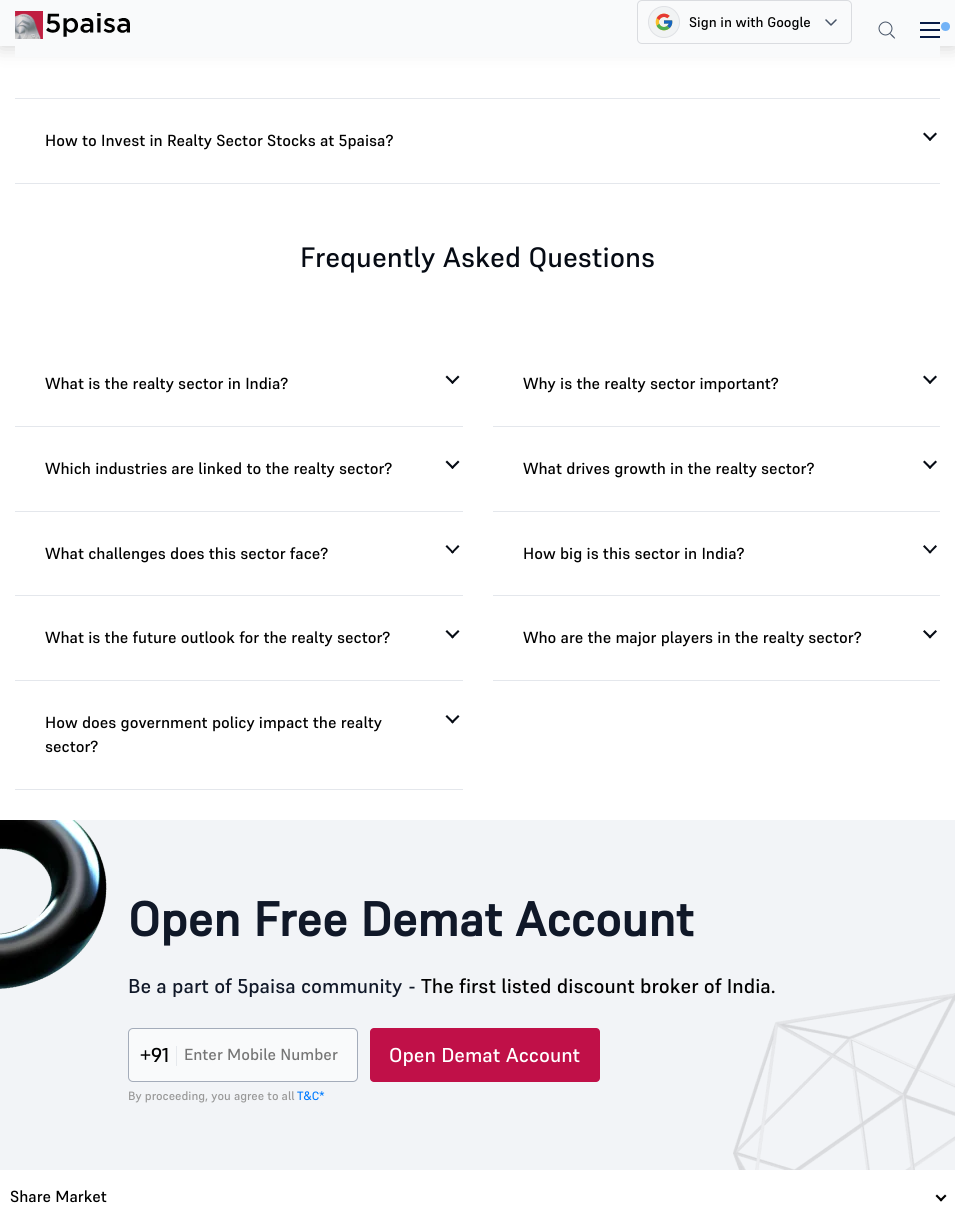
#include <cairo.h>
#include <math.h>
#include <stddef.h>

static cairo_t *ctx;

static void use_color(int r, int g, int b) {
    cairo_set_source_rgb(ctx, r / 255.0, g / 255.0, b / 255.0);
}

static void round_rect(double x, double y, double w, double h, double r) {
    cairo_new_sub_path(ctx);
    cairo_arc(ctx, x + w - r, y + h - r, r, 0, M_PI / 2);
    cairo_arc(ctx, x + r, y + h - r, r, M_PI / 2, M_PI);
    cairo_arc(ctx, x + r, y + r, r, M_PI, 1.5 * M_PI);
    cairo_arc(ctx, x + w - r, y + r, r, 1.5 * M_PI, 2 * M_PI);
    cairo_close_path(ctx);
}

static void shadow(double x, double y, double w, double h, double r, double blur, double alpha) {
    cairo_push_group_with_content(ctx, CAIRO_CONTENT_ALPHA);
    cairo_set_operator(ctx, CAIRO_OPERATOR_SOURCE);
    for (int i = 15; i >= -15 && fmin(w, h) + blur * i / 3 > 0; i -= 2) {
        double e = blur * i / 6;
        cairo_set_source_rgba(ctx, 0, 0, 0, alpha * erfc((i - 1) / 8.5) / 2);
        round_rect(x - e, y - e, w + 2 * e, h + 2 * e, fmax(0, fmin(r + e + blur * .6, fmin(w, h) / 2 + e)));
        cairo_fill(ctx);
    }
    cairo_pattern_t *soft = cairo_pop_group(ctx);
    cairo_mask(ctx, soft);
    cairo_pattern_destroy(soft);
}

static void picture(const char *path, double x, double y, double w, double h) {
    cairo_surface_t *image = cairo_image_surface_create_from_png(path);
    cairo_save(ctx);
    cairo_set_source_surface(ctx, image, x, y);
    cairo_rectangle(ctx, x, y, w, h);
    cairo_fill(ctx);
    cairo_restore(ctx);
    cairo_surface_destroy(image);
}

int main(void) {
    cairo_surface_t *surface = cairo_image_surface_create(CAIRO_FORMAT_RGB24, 955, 1210);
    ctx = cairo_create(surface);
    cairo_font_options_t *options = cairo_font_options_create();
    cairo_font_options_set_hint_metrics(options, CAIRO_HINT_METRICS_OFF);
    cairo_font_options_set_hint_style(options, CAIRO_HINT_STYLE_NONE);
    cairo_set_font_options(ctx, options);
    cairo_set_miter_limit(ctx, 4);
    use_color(255, 255, 255);
    cairo_paint(ctx);
    use_color(0, 0, 0);
    shadow(0, 0, 955, 46, 0, 10, 0.2);
    use_color(249, 250, 251);
    cairo_rectangle(ctx, 0, 0, 955, 46);
    cairo_fill(ctx);
    cairo_rectangle(ctx, 15, 46, 925, 11);
    cairo_fill(ctx);
    picture("img1.png", 15, 11, 115, 28);
    round_rect(637.5, 0.5, 214, 43, 4.5);
    use_color(218, 220, 224);
    cairo_set_line_width(ctx, 1);
    cairo_stroke(ctx);
    use_color(241, 243, 244);
    cairo_arc(ctx, 664, 22, 15.5, 0, 2 * M_PI);
    cairo_fill_preserve(ctx);
    use_color(223, 225, 229);
    cairo_stroke(ctx);
    picture("img2.png", 655, 13, 18, 18);
    cairo_select_font_face(ctx, "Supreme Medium", CAIRO_FONT_SLANT_NORMAL, CAIRO_FONT_WEIGHT_NORMAL);
    cairo_set_font_size(ctx, 14);
    use_color(0, 0, 0);
    cairo_move_to(ctx, 689, 27);
    cairo_show_text(ctx, "Sign in with Google");
    cairo_new_path(ctx);
    cairo_move_to(ctx, 826, 20);
    cairo_line_to(ctx, 831, 25);
    cairo_line_to(ctx, 836, 20);
    use_color(71, 84, 103);
    cairo_set_line_width(ctx, 1.5);
    cairo_set_line_cap(ctx, CAIRO_LINE_CAP_ROUND);
    cairo_set_line_join(ctx, CAIRO_LINE_JOIN_ROUND);
    cairo_stroke(ctx);
    cairo_new_path(ctx);
    cairo_move_to(ctx, 889.5, 33);
    cairo_curve_to(ctx, 890, 32.5, 896, 38, 895, 38.5);
    cairo_curve_to(ctx, 894.5, 39.5, 889, 33.5, 889.5, 33);
    cairo_close_path(ctx);
    cairo_fill(ctx);
    cairo_new_path(ctx);
    cairo_move_to(ctx, 881, 24);
    cairo_curve_to(ctx, 887, 18, 896, 27, 890, 33);
    cairo_curve_to(ctx, 884, 39, 875, 30, 881, 24);
    cairo_close_path(ctx);
    cairo_set_line_width(ctx, 1);
    cairo_set_line_cap(ctx, CAIRO_LINE_CAP_BUTT);
    cairo_set_line_join(ctx, CAIRO_LINE_JOIN_MITER);
    cairo_stroke(ctx);
    use_color(7, 26, 70);
    cairo_rectangle(ctx, 920, 22, 20, 2);
    cairo_fill(ctx);
    use_color(115, 179, 247);
    cairo_arc(ctx, 945.5, 26.5, 4.5, 0, 2 * M_PI);
    cairo_fill(ctx);
    use_color(7, 26, 70);
    cairo_rectangle(ctx, 920, 29, 20, 2);
    cairo_fill(ctx);
    cairo_rectangle(ctx, 920, 36, 20, 2);
    cairo_fill(ctx);
    use_color(228, 231, 236);
    cairo_rectangle(ctx, 15, 98, 925, 1);
    cairo_fill(ctx);
    cairo_rectangle(ctx, 15, 183, 925, 1);
    cairo_fill(ctx);
    cairo_set_font_size(ctx, 16);
    use_color(0, 0, 0);
    cairo_move_to(ctx, 45, 146);
    cairo_show_text(ctx, "How to Invest in Realty Sector Stocks at 5paisa?");
    use_color(6, 11, 20);
    cairo_new_path(ctx);
    cairo_move_to(ctx, 928.5, 139.5);
    cairo_line_to(ctx, 935.5, 132.5);
    cairo_line_to(ctx, 937, 134);
    cairo_line_to(ctx, 930, 141);
    cairo_close_path(ctx);
    cairo_fill(ctx);
    cairo_new_path(ctx);
    cairo_move_to(ctx, 923, 134);
    cairo_line_to(ctx, 924.5, 132.5);
    cairo_line_to(ctx, 931.5, 139.5);
    cairo_line_to(ctx, 930, 141);
    cairo_close_path(ctx);
    cairo_fill(ctx);
    cairo_set_font_size(ctx, 28);
    cairo_move_to(ctx, 300, 267);
    cairo_show_text(ctx, "Frequently Asked Questions");
    use_color(228, 231, 236);
    cairo_rectangle(ctx, 15, 426, 448, 1);
    cairo_fill(ctx);
    cairo_set_font_size(ctx, 16);
    use_color(0, 0, 0);
    cairo_move_to(ctx, 45, 389);
    cairo_show_text(ctx, "What is the realty sector in India?");
    use_color(6, 11, 20);
    cairo_new_path(ctx);
    cairo_move_to(ctx, 451, 382.5);
    cairo_line_to(ctx, 458, 375.5);
    cairo_line_to(ctx, 459.5, 377);
    cairo_line_to(ctx, 452.5, 384);
    cairo_close_path(ctx);
    cairo_fill(ctx);
    cairo_new_path(ctx);
    cairo_move_to(ctx, 445.5, 377);
    cairo_line_to(ctx, 447, 375.5);
    cairo_line_to(ctx, 454, 382.5);
    cairo_line_to(ctx, 452.5, 384);
    cairo_close_path(ctx);
    cairo_fill(ctx);
    use_color(228, 231, 236);
    cairo_rectangle(ctx, 493, 426, 447, 1);
    cairo_fill(ctx);
    use_color(0, 0, 0);
    cairo_move_to(ctx, 523, 389);
    cairo_show_text(ctx, "Why is the realty sector important?");
    use_color(6, 11, 20);
    cairo_new_path(ctx);
    cairo_move_to(ctx, 928.5, 382.5);
    cairo_line_to(ctx, 935.5, 375.5);
    cairo_line_to(ctx, 937, 377);
    cairo_line_to(ctx, 930, 384);
    cairo_close_path(ctx);
    cairo_fill(ctx);
    cairo_new_path(ctx);
    cairo_move_to(ctx, 923, 377);
    cairo_line_to(ctx, 924.5, 375.5);
    cairo_line_to(ctx, 931.5, 382.5);
    cairo_line_to(ctx, 930, 384);
    cairo_close_path(ctx);
    cairo_fill(ctx);
    use_color(228, 231, 236);
    cairo_rectangle(ctx, 15, 511, 448, 1);
    cairo_fill(ctx);
    use_color(0, 0, 0);
    cairo_move_to(ctx, 45, 474);
    cairo_show_text(ctx, "Which industries are linked to the realty sector?");
    use_color(6, 11, 20);
    cairo_new_path(ctx);
    cairo_move_to(ctx, 451, 467.5);
    cairo_line_to(ctx, 458, 460.5);
    cairo_line_to(ctx, 459.5, 462);
    cairo_line_to(ctx, 452.5, 469);
    cairo_close_path(ctx);
    cairo_fill(ctx);
    cairo_new_path(ctx);
    cairo_move_to(ctx, 445.5, 462);
    cairo_line_to(ctx, 447, 460.5);
    cairo_line_to(ctx, 454, 467.5);
    cairo_line_to(ctx, 452.5, 469);
    cairo_close_path(ctx);
    cairo_fill(ctx);
    use_color(228, 231, 236);
    cairo_rectangle(ctx, 493, 511, 447, 1);
    cairo_fill(ctx);
    use_color(0, 0, 0);
    cairo_move_to(ctx, 523, 474);
    cairo_show_text(ctx, "What drives growth in the realty sector?");
    use_color(6, 11, 20);
    cairo_new_path(ctx);
    cairo_move_to(ctx, 928.5, 467.5);
    cairo_line_to(ctx, 935.5, 460.5);
    cairo_line_to(ctx, 937, 462);
    cairo_line_to(ctx, 930, 469);
    cairo_close_path(ctx);
    cairo_fill(ctx);
    cairo_new_path(ctx);
    cairo_move_to(ctx, 923, 462);
    cairo_line_to(ctx, 924.5, 460.5);
    cairo_line_to(ctx, 931.5, 467.5);
    cairo_line_to(ctx, 930, 469);
    cairo_close_path(ctx);
    cairo_fill(ctx);
    use_color(228, 231, 236);
    cairo_rectangle(ctx, 15, 595, 448, 1);
    cairo_fill(ctx);
    use_color(0, 0, 0);
    cairo_move_to(ctx, 45, 559);
    cairo_show_text(ctx, "What challenges does this sector face?");
    use_color(6, 11, 20);
    cairo_new_path(ctx);
    cairo_move_to(ctx, 451, 552.5);
    cairo_line_to(ctx, 458, 545);
    cairo_line_to(ctx, 459.5, 546.5);
    cairo_line_to(ctx, 452.5, 553.5);
    cairo_close_path(ctx);
    cairo_fill(ctx);
    cairo_new_path(ctx);
    cairo_move_to(ctx, 445.5, 546.5);
    cairo_line_to(ctx, 447, 545);
    cairo_line_to(ctx, 454, 552.5);
    cairo_line_to(ctx, 452.5, 553.5);
    cairo_close_path(ctx);
    cairo_fill(ctx);
    use_color(228, 231, 236);
    cairo_rectangle(ctx, 493, 595, 447, 1);
    cairo_fill(ctx);
    use_color(0, 0, 0);
    cairo_move_to(ctx, 523, 559);
    cairo_show_text(ctx, "How big is this sector in India?");
    use_color(6, 11, 20);
    cairo_new_path(ctx);
    cairo_move_to(ctx, 928.5, 552.5);
    cairo_line_to(ctx, 935.5, 545);
    cairo_line_to(ctx, 937, 546.5);
    cairo_line_to(ctx, 930, 553.5);
    cairo_close_path(ctx);
    cairo_fill(ctx);
    cairo_new_path(ctx);
    cairo_move_to(ctx, 923, 546.5);
    cairo_line_to(ctx, 924.5, 545);
    cairo_line_to(ctx, 931.5, 552.5);
    cairo_line_to(ctx, 930, 553.5);
    cairo_close_path(ctx);
    cairo_fill(ctx);
    use_color(228, 231, 236);
    cairo_rectangle(ctx, 15, 680, 448, 1);
    cairo_fill(ctx);
    use_color(0, 0, 0);
    cairo_move_to(ctx, 45, 643);
    cairo_show_text(ctx, "What is the future outlook for the realty sector?");
    use_color(6, 11, 20);
    cairo_new_path(ctx);
    cairo_move_to(ctx, 451, 637);
    cairo_line_to(ctx, 458, 630);
    cairo_line_to(ctx, 459.5, 631.5);
    cairo_line_to(ctx, 452.5, 638.5);
    cairo_close_path(ctx);
    cairo_fill(ctx);
    cairo_new_path(ctx);
    cairo_move_to(ctx, 445.5, 631.5);
    cairo_line_to(ctx, 447, 630);
    cairo_line_to(ctx, 454, 637);
    cairo_line_to(ctx, 452.5, 638.5);
    cairo_close_path(ctx);
    cairo_fill(ctx);
    use_color(228, 231, 236);
    cairo_rectangle(ctx, 493, 680, 447, 1);
    cairo_fill(ctx);
    use_color(0, 0, 0);
    cairo_move_to(ctx, 523, 643);
    cairo_show_text(ctx, "Who are the major players in the realty sector?");
    use_color(6, 11, 20);
    cairo_new_path(ctx);
    cairo_move_to(ctx, 928.5, 637);
    cairo_line_to(ctx, 935.5, 630);
    cairo_line_to(ctx, 937, 631.5);
    cairo_line_to(ctx, 930, 638.5);
    cairo_close_path(ctx);
    cairo_fill(ctx);
    cairo_new_path(ctx);
    cairo_move_to(ctx, 923, 631.5);
    cairo_line_to(ctx, 924.5, 630);
    cairo_line_to(ctx, 931.5, 637);
    cairo_line_to(ctx, 930, 638.5);
    cairo_close_path(ctx);
    cairo_fill(ctx);
    use_color(228, 231, 236);
    cairo_rectangle(ctx, 15, 789, 448, 1);
    cairo_fill(ctx);
    use_color(0, 0, 0);
    cairo_move_to(ctx, 45, 728);
    cairo_show_text(ctx, "How does government policy impact the realty");
    use_color(6, 11, 20);
    cairo_new_path(ctx);
    cairo_move_to(ctx, 451, 722);
    cairo_line_to(ctx, 458, 715);
    cairo_line_to(ctx, 459.5, 716.5);
    cairo_line_to(ctx, 452.5, 723.5);
    cairo_close_path(ctx);
    cairo_fill(ctx);
    cairo_new_path(ctx);
    cairo_move_to(ctx, 445.5, 716.5);
    cairo_line_to(ctx, 447, 715);
    cairo_line_to(ctx, 454, 722);
    cairo_line_to(ctx, 452.5, 723.5);
    cairo_close_path(ctx);
    cairo_fill(ctx);
    use_color(0, 0, 0);
    cairo_move_to(ctx, 45, 752);
    cairo_show_text(ctx, "sector?");
    use_color(242, 244, 247);
    cairo_rectangle(ctx, 0, 820, 955, 350);
    cairo_fill(ctx);
    picture("img3.png", 0, 820, 107, 169);
    cairo_select_font_face(ctx, "Supreme", CAIRO_FONT_SLANT_NORMAL, CAIRO_FONT_WEIGHT_BOLD);
    cairo_set_font_size(ctx, 48);
    use_color(16, 24, 40);
    cairo_move_to(ctx, 128, 936);
    cairo_show_text(ctx, "Open Free Demat Account");
    cairo_select_font_face(ctx, "Supreme Medium", CAIRO_FONT_SLANT_NORMAL, CAIRO_FONT_WEIGHT_NORMAL);
    cairo_set_font_size(ctx, 20);
    cairo_move_to(ctx, 128, 993);
    cairo_show_text(ctx, "Be a part of 5paisa community -");
    picture("img4.png", 733, 993, 222, 177);
    use_color(0, 0, 0);
    cairo_move_to(ctx, 421, 993);
    cairo_show_text(ctx, "The first listed discount broker of India.");
    use_color(249, 250, 251);
    round_rect(128.5, 1028.5, 229, 53, 4.5);
    cairo_fill_preserve(ctx);
    use_color(164, 172, 186);
    cairo_stroke(ctx);
    use_color(0, 0, 0);
    cairo_move_to(ctx, 140, 1062);
    cairo_show_text(ctx, "+91");
    use_color(230, 233, 237);
    cairo_rectangle(ctx, 176, 1046, 1, 20);
    cairo_fill(ctx);
    cairo_set_font_size(ctx, 16);
    use_color(117, 117, 117);
    cairo_move_to(ctx, 184, 1060);
    cairo_show_text(ctx, "Enter Mobile Number");
    use_color(192, 16, 72);
    round_rect(370, 1028, 230, 54, 4);
    cairo_fill(ctx);
    cairo_set_font_size(ctx, 20);
    use_color(255, 255, 255);
    cairo_move_to(ctx, 389, 1062);
    cairo_show_text(ctx, "Open Demat Account");
    cairo_set_font_size(ctx, 12);
    use_color(152, 152, 152);
    cairo_move_to(ctx, 128, 1100);
    cairo_show_text(ctx, "By proceeding, you agree to all");
    use_color(0, 123, 255);
    cairo_move_to(ctx, 297, 1100);
    cairo_show_text(ctx, "T&C*");
    cairo_set_font_size(ctx, 16);
    use_color(0, 0, 0);
    cairo_move_to(ctx, 10, 1202);
    cairo_show_text(ctx, "Share Market");
    cairo_new_path(ctx);
    cairo_move_to(ctx, 946.5, 1196);
    cairo_line_to(ctx, 941, 1201.5);
    cairo_line_to(ctx, 939.5, 1200);
    cairo_line_to(ctx, 945, 1194.5);
    cairo_close_path(ctx);
    cairo_fill(ctx);
    cairo_new_path(ctx);
    cairo_move_to(ctx, 942.5, 1200);
    cairo_line_to(ctx, 941, 1201.5);
    cairo_line_to(ctx, 935.5, 1196);
    cairo_line_to(ctx, 937, 1194.5);
    cairo_close_path(ctx);
    cairo_fill(ctx);
    cairo_surface_write_to_png(surface, "result.png");
    cairo_font_options_destroy(options);
    cairo_destroy(ctx);
    cairo_surface_destroy(surface);
    return 0;
}
